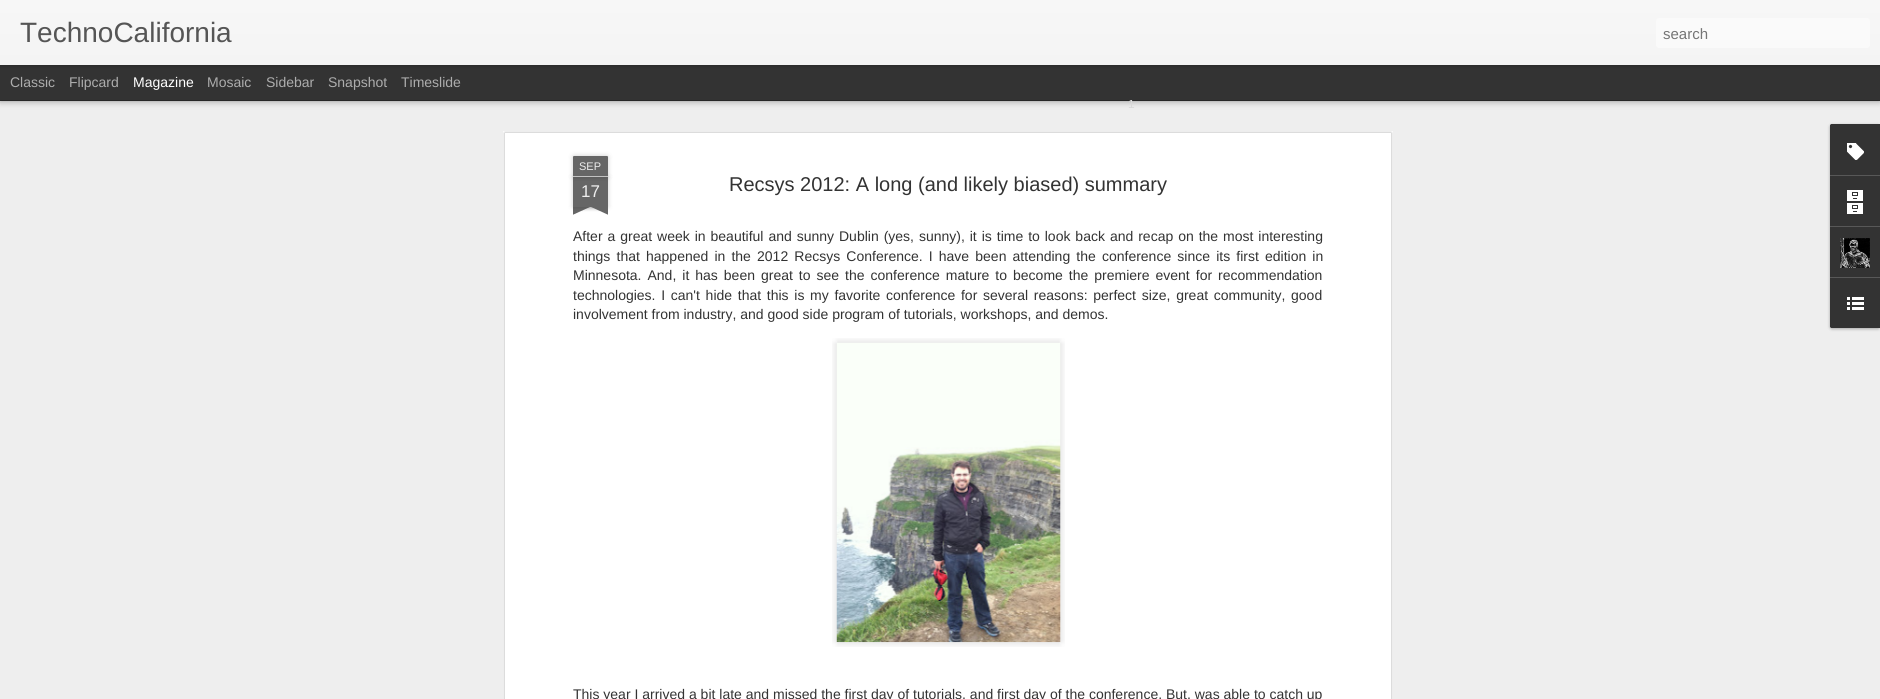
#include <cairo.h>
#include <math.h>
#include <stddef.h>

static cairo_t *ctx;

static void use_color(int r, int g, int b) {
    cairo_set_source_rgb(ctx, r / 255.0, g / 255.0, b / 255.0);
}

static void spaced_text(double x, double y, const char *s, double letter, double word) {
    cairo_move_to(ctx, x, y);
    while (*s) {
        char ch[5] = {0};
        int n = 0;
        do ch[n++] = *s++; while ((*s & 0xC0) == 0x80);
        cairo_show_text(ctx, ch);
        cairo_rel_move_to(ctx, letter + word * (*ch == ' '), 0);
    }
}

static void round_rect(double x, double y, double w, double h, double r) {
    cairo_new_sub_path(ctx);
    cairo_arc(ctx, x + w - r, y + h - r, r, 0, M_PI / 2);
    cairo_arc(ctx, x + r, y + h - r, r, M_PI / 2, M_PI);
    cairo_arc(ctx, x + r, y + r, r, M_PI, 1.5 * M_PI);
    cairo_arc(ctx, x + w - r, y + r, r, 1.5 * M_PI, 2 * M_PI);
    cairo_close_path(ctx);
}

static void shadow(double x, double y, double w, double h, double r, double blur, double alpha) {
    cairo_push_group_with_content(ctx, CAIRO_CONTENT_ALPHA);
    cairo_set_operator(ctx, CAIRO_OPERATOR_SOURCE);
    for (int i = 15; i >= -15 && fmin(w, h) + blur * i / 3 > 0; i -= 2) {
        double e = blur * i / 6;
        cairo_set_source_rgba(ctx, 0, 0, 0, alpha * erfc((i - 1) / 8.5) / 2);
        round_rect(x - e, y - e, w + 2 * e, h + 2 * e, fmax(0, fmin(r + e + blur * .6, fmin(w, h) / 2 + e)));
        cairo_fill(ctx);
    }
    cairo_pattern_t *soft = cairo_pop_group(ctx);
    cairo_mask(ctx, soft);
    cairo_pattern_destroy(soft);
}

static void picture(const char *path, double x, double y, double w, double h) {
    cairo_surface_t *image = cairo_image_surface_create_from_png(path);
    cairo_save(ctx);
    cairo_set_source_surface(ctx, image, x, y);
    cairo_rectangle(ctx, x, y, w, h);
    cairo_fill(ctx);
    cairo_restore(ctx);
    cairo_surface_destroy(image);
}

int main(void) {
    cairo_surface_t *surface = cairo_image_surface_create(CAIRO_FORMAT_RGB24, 1880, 699);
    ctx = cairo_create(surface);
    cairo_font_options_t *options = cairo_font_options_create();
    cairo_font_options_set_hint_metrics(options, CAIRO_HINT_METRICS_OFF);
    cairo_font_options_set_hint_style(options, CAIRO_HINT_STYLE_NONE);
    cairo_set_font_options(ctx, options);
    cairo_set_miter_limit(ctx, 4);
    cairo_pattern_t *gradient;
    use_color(51, 51, 51);
    cairo_paint(ctx);
    use_color(238, 238, 238);
    cairo_rectangle(ctx, 0, 101, 1880, 598);
    cairo_fill(ctx);
    use_color(0, 0, 0);
    shadow(0, 65, 1880, 35, 0, 4, 0.5);
    cairo_select_font_face(ctx, "Liberation Sans", CAIRO_FONT_SLANT_NORMAL, CAIRO_FONT_WEIGHT_NORMAL);
    cairo_set_font_size(ctx, 12);
    use_color(217, 217, 217);
    cairo_move_to(ctx, 1128, 108);
    cairo_show_text(ctx, "1");
    use_color(51, 51, 51);
    cairo_rectangle(ctx, 0, 65, 1880, 35);
    cairo_fill(ctx);
    use_color(0, 0, 0);
    shadow(0, 0, 1880, 65, 0, 2.5, 0.3);
    gradient = cairo_pattern_create_linear(0, 0, 0, 65);
    cairo_pattern_add_color_stop_rgba(gradient, 0, 0.969, 0.969, 0.969, 1);
    cairo_pattern_add_color_stop_rgba(gradient, 1, 0.957, 0.957, 0.957, 1);
    cairo_set_source(ctx, gradient);
    cairo_pattern_destroy(gradient);
    cairo_rectangle(ctx, 0, 0, 1880, 65);
    cairo_fill(ctx);
    cairo_set_font_size(ctx, 28);
    use_color(85, 85, 85);
    cairo_move_to(ctx, 20, 42);
    cairo_show_text(ctx, "TechnoCalifornia");
    use_color(250, 250, 250);
    round_rect(1656, 18, 214, 30, 3);
    cairo_fill(ctx);
    cairo_set_font_size(ctx, 15);
    use_color(117, 117, 117);
    cairo_move_to(ctx, 1663, 39);
    cairo_show_text(ctx, "search");
    cairo_set_font_size(ctx, 14);
    use_color(173, 173, 173);
    cairo_move_to(ctx, 10, 87);
    cairo_show_text(ctx, "Classic");
    cairo_move_to(ctx, 69, 87);
    cairo_show_text(ctx, "Flipcard");
    use_color(255, 255, 255);
    cairo_move_to(ctx, 133, 87);
    cairo_show_text(ctx, "Magazine");
    use_color(173, 173, 173);
    cairo_move_to(ctx, 207, 87);
    cairo_show_text(ctx, "Mosaic");
    cairo_move_to(ctx, 266, 87);
    cairo_show_text(ctx, "Sidebar");
    cairo_move_to(ctx, 328, 87);
    cairo_show_text(ctx, "Snapshot");
    cairo_move_to(ctx, 401, 87);
    cairo_show_text(ctx, "Timeslide");
    use_color(255, 255, 255);
    cairo_rectangle(ctx, 503, 131, 890, 568);
    cairo_fill(ctx);
    picture("img1.png", 503, 131, 890, 568);
    use_color(0, 0, 0);
    shadow(573, 177, 35, 30, 0, 2.5, 0.2);
    use_color(102, 102, 102);
    cairo_rectangle(ctx, 573, 177, 35, 30);
    cairo_fill(ctx);
    use_color(0, 0, 0);
    shadow(573, 156, 35, 21, 1, 2.5, 0.2);
    use_color(102, 102, 102);
    cairo_new_path(ctx);
    cairo_move_to(ctx, 574, 156);
    cairo_line_to(ctx, 607, 156);
    cairo_curve_to(ctx, 607.5, 156, 608, 156.5, 608, 157);
    cairo_line_to(ctx, 608, 177);
    cairo_line_to(ctx, 573, 177);
    cairo_line_to(ctx, 573, 157);
    cairo_curve_to(ctx, 573, 156.5, 573.5, 156, 574, 156);
    cairo_close_path(ctx);
    cairo_fill(ctx);
    use_color(194, 194, 194);
    cairo_rectangle(ctx, 573, 176, 35, 1);
    cairo_fill(ctx);
    cairo_set_font_size(ctx, 11);
    use_color(238, 238, 238);
    cairo_move_to(ctx, 579, 170);
    cairo_show_text(ctx, "SEP");
    cairo_set_font_size(ctx, 17);
    cairo_move_to(ctx, 581, 197);
    cairo_show_text(ctx, "17");
    cairo_save(ctx);
    cairo_rectangle(ctx, 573, 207, 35, 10);
    cairo_clip(ctx);
    use_color(0, 0, 0);
    shadow(564, 197, 50, 10, 0, 2.5, 0.2);
    cairo_restore(ctx);
    cairo_save(ctx);
    cairo_rectangle(ctx, 573, 207, 35, 10);
    cairo_clip(ctx);
    use_color(102, 102, 102);
    cairo_new_path(ctx);
    cairo_move_to(ctx, 564, 208);
    cairo_line_to(ctx, 610, 187);
    cairo_line_to(ctx, 614, 196);
    cairo_line_to(ctx, 568, 217);
    cairo_close_path(ctx);
    cairo_fill(ctx);
    cairo_restore(ctx);
    cairo_save(ctx);
    cairo_rectangle(ctx, 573, 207, 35, 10);
    cairo_clip(ctx);
    use_color(0, 0, 0);
    shadow(567, 197, 50, 10, 0, 2.5, 0.2);
    cairo_restore(ctx);
    cairo_save(ctx);
    cairo_rectangle(ctx, 573, 207, 35, 10);
    cairo_clip(ctx);
    use_color(102, 102, 102);
    cairo_new_path(ctx);
    cairo_move_to(ctx, 571, 187);
    cairo_line_to(ctx, 617, 208);
    cairo_line_to(ctx, 613, 217);
    cairo_line_to(ctx, 567, 196);
    cairo_close_path(ctx);
    cairo_fill(ctx);
    cairo_restore(ctx);
    cairo_set_font_size(ctx, 20);
    use_color(51, 51, 51);
    cairo_move_to(ctx, 729, 191);
    cairo_show_text(ctx, "Recsys 2012: A long (and likely biased) summary");
    cairo_set_font_size(ctx, 14);
    spaced_text(573, 241, "After a great week in beautiful and sunny Dublin (yes, sunny), it is time to look back and recap on the most interesting", 0, 1.05);
    spaced_text(573, 261, "things that happened in the 2012 Recsys Conference. I have been attending the conference since its first edition in", 0, 2.25);
    spaced_text(573, 280, "Minnesota. And, it has been great to see the conference mature to become the premiere event for recommendation", 0, 2.1);
    spaced_text(573, 300, "technologies. I can't hide that this is my favorite conference for several reasons: perfect size, great community, good", 0, 1.8);
    cairo_move_to(ctx, 573, 319);
    cairo_show_text(ctx, "involvement from industry, and good side program of tutorials, workshops, and demos.");
    picture("img2.png", 832, 338, 233, 309);
    picture("img3.png", 836, 342, 225, 301);
    cairo_move_to(ctx, 573, 699);
    cairo_show_text(ctx, "This year I arrived a bit late and missed the first day of tutorials, and first day of the conference. But, was able to catch up");
    use_color(0, 0, 0);
    shadow(1830, 125, 50, 204, 2, 1.5, 0.3);
    use_color(51, 51, 51);
    cairo_new_path(ctx);
    cairo_move_to(ctx, 1832, 124);
    cairo_line_to(ctx, 1880, 124);
    cairo_line_to(ctx, 1880, 328);
    cairo_line_to(ctx, 1832, 328);
    cairo_curve_to(ctx, 1831, 328, 1830, 327, 1830, 326);
    cairo_line_to(ctx, 1830, 126);
    cairo_curve_to(ctx, 1830, 125, 1831, 124, 1832, 124);
    cairo_close_path(ctx);
    cairo_fill(ctx);
    cairo_new_path(ctx);
    cairo_move_to(ctx, 1832, 124);
    cairo_line_to(ctx, 1880, 124);
    cairo_line_to(ctx, 1880, 175);
    cairo_line_to(ctx, 1830, 175);
    cairo_line_to(ctx, 1830, 126);
    cairo_curve_to(ctx, 1830, 125, 1831, 124, 1832, 124);
    cairo_close_path(ctx);
    cairo_fill(ctx);
    picture("img4.png", 1847, 143, 17, 17);
    use_color(88, 88, 88);
    cairo_rectangle(ctx, 1830, 175, 50, 1);
    cairo_fill(ctx);
    picture("img5.png", 1847, 190, 16, 24);
    cairo_rectangle(ctx, 1830, 226, 50, 1);
    cairo_fill(ctx);
    picture("img6.png", 1840, 238, 30, 30);
    use_color(51, 51, 51);
    cairo_new_path(ctx);
    cairo_move_to(ctx, 1830, 277);
    cairo_line_to(ctx, 1880, 277);
    cairo_line_to(ctx, 1880, 328);
    cairo_line_to(ctx, 1832, 328);
    cairo_curve_to(ctx, 1831, 328, 1830, 327, 1830, 326);
    cairo_close_path(ctx);
    cairo_fill(ctx);
    use_color(88, 88, 88);
    cairo_rectangle(ctx, 1830, 277, 50, 1);
    cairo_fill(ctx);
    picture("img7.png", 1847, 297, 17, 13);
    cairo_surface_write_to_png(surface, "result.png");
    cairo_font_options_destroy(options);
    cairo_destroy(ctx);
    cairo_surface_destroy(surface);
    return 0;
}
